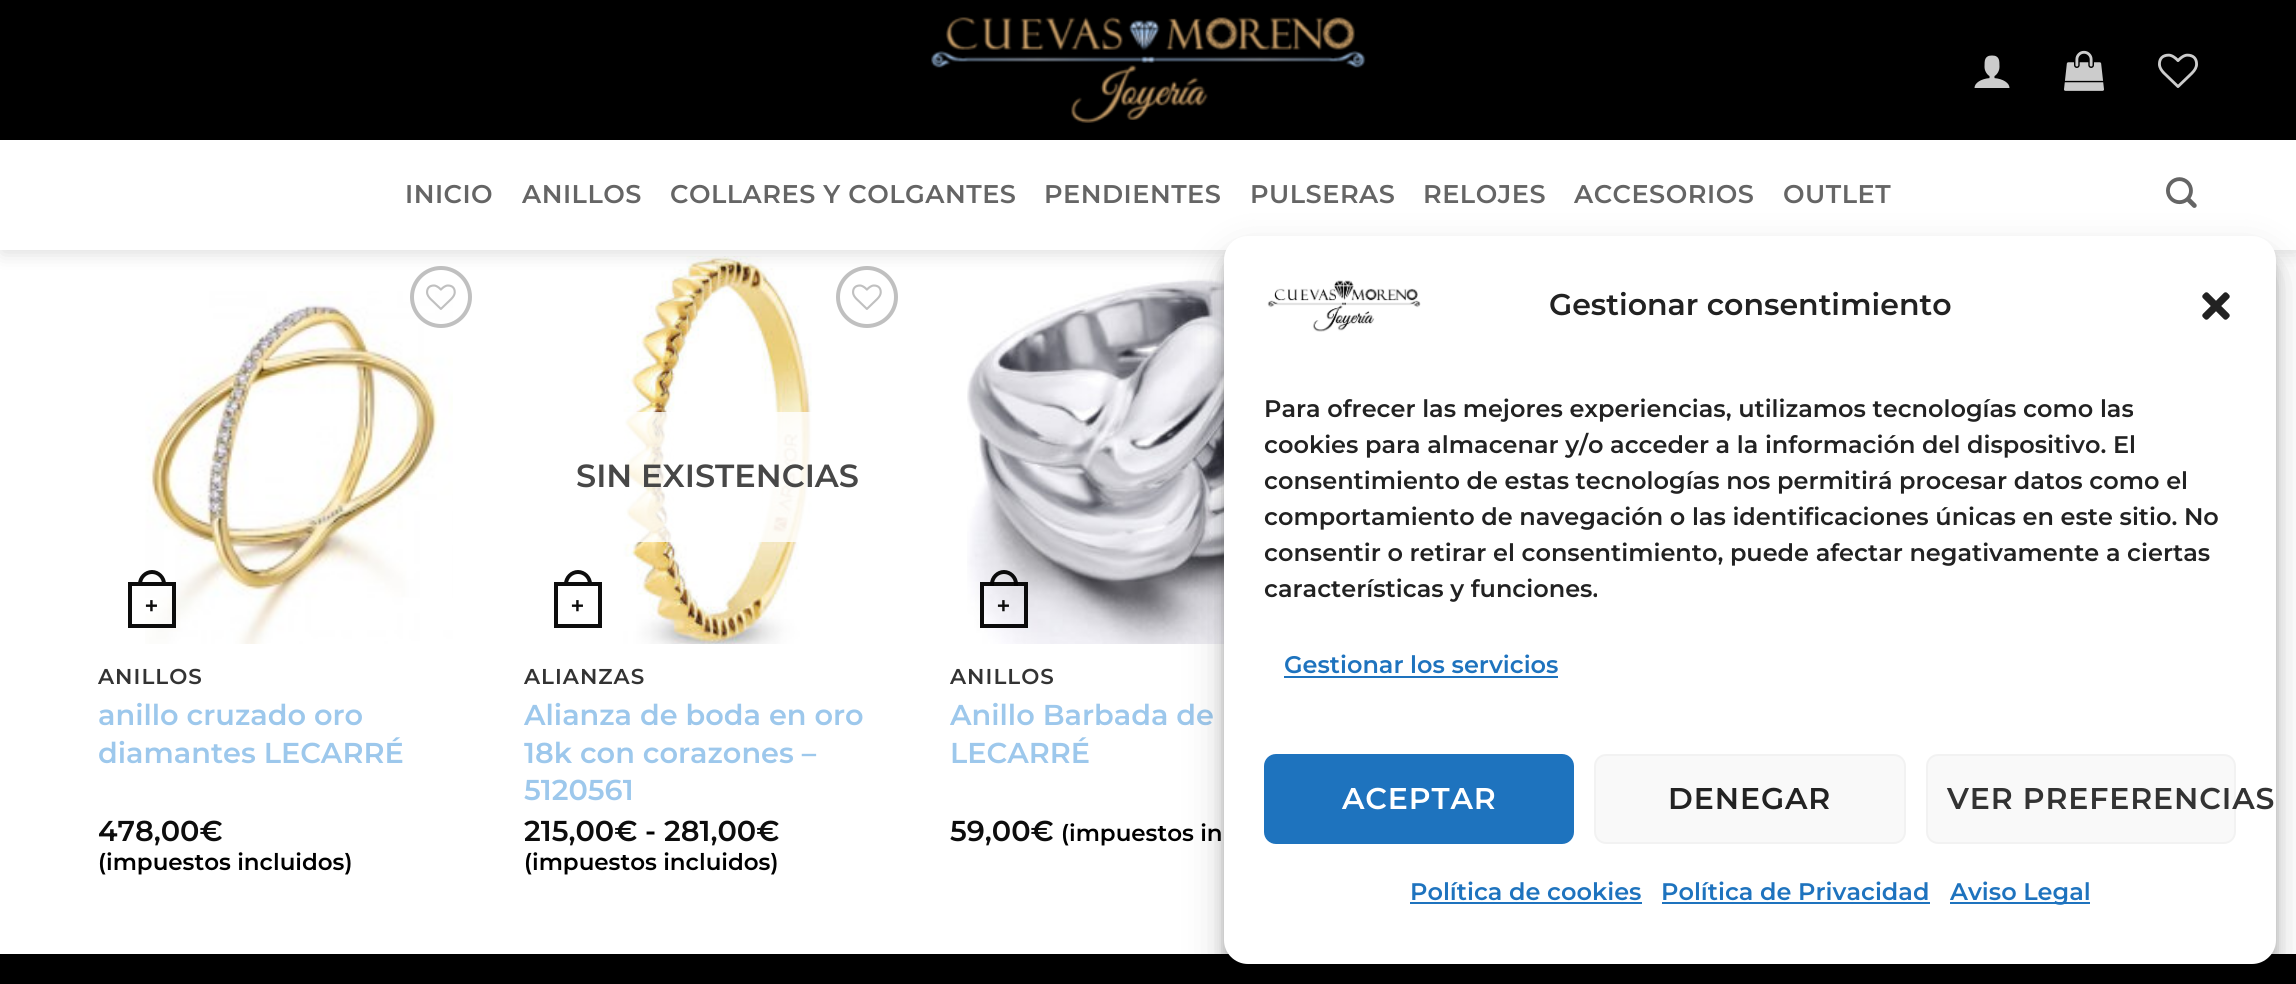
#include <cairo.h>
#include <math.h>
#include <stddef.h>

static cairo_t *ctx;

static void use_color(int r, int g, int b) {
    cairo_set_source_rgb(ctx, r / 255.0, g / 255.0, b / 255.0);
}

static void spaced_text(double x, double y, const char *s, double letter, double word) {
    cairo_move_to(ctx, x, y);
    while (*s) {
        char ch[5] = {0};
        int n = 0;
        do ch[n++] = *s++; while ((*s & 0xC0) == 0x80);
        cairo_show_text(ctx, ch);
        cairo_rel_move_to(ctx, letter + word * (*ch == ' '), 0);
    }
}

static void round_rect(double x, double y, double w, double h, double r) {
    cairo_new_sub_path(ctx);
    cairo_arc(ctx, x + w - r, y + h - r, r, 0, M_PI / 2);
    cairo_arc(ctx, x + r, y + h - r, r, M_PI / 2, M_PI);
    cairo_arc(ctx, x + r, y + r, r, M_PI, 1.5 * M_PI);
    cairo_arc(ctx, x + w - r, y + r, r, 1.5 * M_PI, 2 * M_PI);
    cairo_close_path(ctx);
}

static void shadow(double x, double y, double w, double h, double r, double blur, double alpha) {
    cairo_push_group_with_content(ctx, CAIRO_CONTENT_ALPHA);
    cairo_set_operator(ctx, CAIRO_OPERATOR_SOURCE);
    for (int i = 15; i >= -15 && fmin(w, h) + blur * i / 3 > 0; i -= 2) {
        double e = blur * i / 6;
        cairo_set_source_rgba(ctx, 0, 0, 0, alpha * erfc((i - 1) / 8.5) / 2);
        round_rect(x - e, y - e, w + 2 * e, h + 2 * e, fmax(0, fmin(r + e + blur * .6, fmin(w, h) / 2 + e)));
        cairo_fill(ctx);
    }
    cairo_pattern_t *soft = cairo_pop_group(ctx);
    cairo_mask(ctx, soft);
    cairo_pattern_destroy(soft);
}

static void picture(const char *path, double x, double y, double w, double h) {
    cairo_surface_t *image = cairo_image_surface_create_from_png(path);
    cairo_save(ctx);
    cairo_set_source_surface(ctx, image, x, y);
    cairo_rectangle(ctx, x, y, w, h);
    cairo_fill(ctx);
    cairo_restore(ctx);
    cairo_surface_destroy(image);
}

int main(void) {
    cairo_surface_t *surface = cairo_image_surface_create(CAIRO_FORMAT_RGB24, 2296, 984);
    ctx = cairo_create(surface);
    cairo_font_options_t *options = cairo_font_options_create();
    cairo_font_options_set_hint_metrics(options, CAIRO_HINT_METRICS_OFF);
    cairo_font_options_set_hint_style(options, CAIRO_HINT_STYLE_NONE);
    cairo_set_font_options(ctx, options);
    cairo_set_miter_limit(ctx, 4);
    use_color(255, 255, 255);
    cairo_paint(ctx);
    picture("img7.png", 145, 291, 308, 353);
    cairo_arc(ctx, 441, 297, 29, 0, 2 * M_PI);
    use_color(192, 192, 192);
    cairo_set_line_width(ctx, 4);
    cairo_stroke(ctx);
    picture("img8.png", 623, 256, 189, 388);
    cairo_arc(ctx, 867, 297, 29, 0, 2 * M_PI);
    cairo_stroke(ctx);
    picture("img10.png", 967, 279, 257, 365);
    use_color(0, 0, 0);
    shadow(2, 2, 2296, 250, 0, 10, 0.15);
    use_color(0, 0, 0);
    cairo_rectangle(ctx, 0, 0, 2296, 140);
    cairo_fill(ctx);
    picture("img1.png", 931, 17, 435, 106);
    picture("img2.png", 1974, 55, 36, 33);
    picture("img3.png", 2064, 50, 40, 41);
    picture("img4.png", 2158, 53, 40, 35);
    use_color(255, 255, 255);
    cairo_rectangle(ctx, 0, 140, 2296, 110);
    cairo_fill(ctx);
    cairo_select_font_face(ctx, "Montserrat Thin", CAIRO_FONT_SLANT_NORMAL, CAIRO_FONT_WEIGHT_NORMAL);
    cairo_set_font_size(ctx, 25.6);
    use_color(101, 101, 101);
    spaced_text(405, 203, "INICIO", 0.5, 0);
    spaced_text(522, 203, "ANILLOS", 0.5, 0);
    spaced_text(670, 203, "COLLARES Y COLGANTES", 0.5, 0);
    spaced_text(1044, 203, "PENDIENTES", 0.5, 0);
    spaced_text(1250, 203, "PULSERAS", 0.5, 0);
    spaced_text(1423, 203, "RELOJES", 0.5, 0);
    spaced_text(1574, 203, "ACCESORIOS", 0.5, 0);
    spaced_text(1783, 203, "OUTLET", 0.5, 0);
    picture("img5.png", 2166, 177, 31, 31);
    picture("img6.png", 426, 284, 30, 26);
    cairo_rectangle(ctx, 130, 584, 44, 42);
    cairo_set_source_rgba(ctx, 0, 0, 0, 0.95);
    cairo_stroke(ctx);
    use_color(13, 13, 13);
    cairo_set_fill_rule(ctx, CAIRO_FILL_RULE_EVEN_ODD);
    cairo_new_path(ctx);
    cairo_move_to(ctx, 152, 570);
    cairo_curve_to(ctx, 159.5, 570, 166, 576.5, 166, 584);
    cairo_line_to(ctx, 166, 586);
    cairo_line_to(ctx, 138, 586);
    cairo_line_to(ctx, 138, 584);
    cairo_curve_to(ctx, 138, 576.5, 144.5, 570, 152, 570);
    cairo_close_path(ctx);
    cairo_move_to(ctx, 152, 574);
    cairo_curve_to(ctx, 157.5, 574, 162, 578.5, 162, 584);
    cairo_line_to(ctx, 162, 586);
    cairo_line_to(ctx, 142, 586);
    cairo_line_to(ctx, 142, 584);
    cairo_curve_to(ctx, 142, 578.5, 146.5, 574, 152, 574);
    cairo_close_path(ctx);
    cairo_fill(ctx);
    cairo_select_font_face(ctx, "Liberation Sans", CAIRO_FONT_SLANT_NORMAL, CAIRO_FONT_WEIGHT_BOLD);
    cairo_set_font_size(ctx, 22);
    cairo_move_to(ctx, 145, 613);
    cairo_show_text(ctx, "+");
    cairo_select_font_face(ctx, "Montserrat Thin", CAIRO_FONT_SLANT_NORMAL, CAIRO_FONT_WEIGHT_NORMAL);
    cairo_set_font_size(ctx, 21.5);
    use_color(51, 51, 51);
    spaced_text(98, 684, "ANILLOS", 1, 0);
    cairo_set_font_size(ctx, 28.75);
    use_color(157, 200, 236);
    cairo_move_to(ctx, 98, 725);
    cairo_show_text(ctx, "anillo cruzado oro");
    cairo_move_to(ctx, 98, 763);
    cairo_show_text(ctx, "diamantes LECARRÉ");
    use_color(13, 13, 13);
    cairo_move_to(ctx, 98, 841);
    cairo_show_text(ctx, "478,00€");
    cairo_set_font_size(ctx, 23);
    use_color(0, 0, 0);
    cairo_move_to(ctx, 98, 870);
    cairo_show_text(ctx, "(impuestos incluidos)");
    picture("img9.png", 852, 284, 30, 26);
    cairo_set_source_rgba(ctx, 1, 1, 1, 0.81);
    cairo_rectangle(ctx, 623, 412, 189, 130);
    cairo_fill(ctx);
    cairo_set_font_size(ctx, 32);
    use_color(71, 71, 71);
    cairo_move_to(ctx, 576, 487);
    cairo_show_text(ctx, "SIN EXISTENCIAS");
    cairo_rectangle(ctx, 556, 584, 44, 42);
    use_color(13, 13, 13);
    cairo_stroke(ctx);
    cairo_new_path(ctx);
    cairo_move_to(ctx, 578, 570);
    cairo_curve_to(ctx, 585.5, 570, 592, 576.5, 592, 584);
    cairo_line_to(ctx, 592, 586);
    cairo_line_to(ctx, 564, 586);
    cairo_line_to(ctx, 564, 584);
    cairo_curve_to(ctx, 564, 576.5, 570.5, 570, 578, 570);
    cairo_close_path(ctx);
    cairo_move_to(ctx, 578, 574);
    cairo_curve_to(ctx, 583.5, 574, 588, 578.5, 588, 584);
    cairo_line_to(ctx, 588, 586);
    cairo_line_to(ctx, 568, 586);
    cairo_line_to(ctx, 568, 584);
    cairo_curve_to(ctx, 568, 578.5, 572.5, 574, 578, 574);
    cairo_close_path(ctx);
    cairo_fill(ctx);
    cairo_select_font_face(ctx, "Liberation Sans", CAIRO_FONT_SLANT_NORMAL, CAIRO_FONT_WEIGHT_BOLD);
    cairo_set_font_size(ctx, 22);
    cairo_move_to(ctx, 571, 613);
    cairo_show_text(ctx, "+");
    cairo_select_font_face(ctx, "Montserrat Thin", CAIRO_FONT_SLANT_NORMAL, CAIRO_FONT_WEIGHT_NORMAL);
    cairo_set_font_size(ctx, 21.5);
    use_color(51, 51, 51);
    spaced_text(524, 684, "ALIANZAS", 1, 0);
    cairo_set_font_size(ctx, 28.75);
    use_color(157, 200, 236);
    cairo_move_to(ctx, 524, 725);
    cairo_show_text(ctx, "Alianza de boda en oro");
    cairo_move_to(ctx, 524, 763);
    cairo_show_text(ctx, "18k con corazones –");
    cairo_move_to(ctx, 524, 800);
    cairo_show_text(ctx, "5120561");
    use_color(13, 13, 13);
    cairo_move_to(ctx, 524, 841);
    cairo_show_text(ctx, "215,00€");
    use_color(0, 0, 0);
    cairo_move_to(ctx, 645, 841);
    cairo_show_text(ctx, "-");
    use_color(13, 13, 13);
    cairo_move_to(ctx, 664, 841);
    cairo_show_text(ctx, "281,00€");
    cairo_set_font_size(ctx, 23);
    use_color(0, 0, 0);
    cairo_move_to(ctx, 524, 870);
    cairo_show_text(ctx, "(impuestos incluidos)");
    cairo_rectangle(ctx, 982, 584, 44, 42);
    cairo_set_source_rgba(ctx, 0, 0, 0, 0.95);
    cairo_stroke(ctx);
    cairo_new_path(ctx);
    cairo_move_to(ctx, 1004, 570);
    cairo_curve_to(ctx, 1011.5, 570, 1018, 576.5, 1018, 584);
    cairo_line_to(ctx, 1018, 586);
    cairo_line_to(ctx, 990, 586);
    cairo_line_to(ctx, 990, 584);
    cairo_curve_to(ctx, 990, 576.5, 996.5, 570, 1004, 570);
    cairo_close_path(ctx);
    cairo_move_to(ctx, 1004, 574);
    cairo_curve_to(ctx, 1009.5, 574, 1014, 578.5, 1014, 584);
    cairo_line_to(ctx, 1014, 586);
    cairo_line_to(ctx, 994, 586);
    cairo_line_to(ctx, 994, 584);
    cairo_curve_to(ctx, 994, 578.5, 998.5, 574, 1004, 574);
    cairo_close_path(ctx);
    cairo_fill(ctx);
    cairo_select_font_face(ctx, "Liberation Sans", CAIRO_FONT_SLANT_NORMAL, CAIRO_FONT_WEIGHT_BOLD);
    cairo_set_font_size(ctx, 22);
    use_color(13, 13, 13);
    cairo_move_to(ctx, 997, 613);
    cairo_show_text(ctx, "+");
    cairo_select_font_face(ctx, "Montserrat Thin", CAIRO_FONT_SLANT_NORMAL, CAIRO_FONT_WEIGHT_NORMAL);
    cairo_set_font_size(ctx, 21.5);
    use_color(51, 51, 51);
    spaced_text(950, 684, "ANILLOS", 1, 0);
    cairo_set_font_size(ctx, 28.75);
    use_color(157, 200, 236);
    cairo_move_to(ctx, 950, 725);
    cairo_show_text(ctx, "Anillo Barbada de");
    cairo_move_to(ctx, 950, 763);
    cairo_show_text(ctx, "LECARRÉ");
    use_color(13, 13, 13);
    cairo_move_to(ctx, 950, 841);
    cairo_show_text(ctx, "59,00€");
    cairo_set_font_size(ctx, 23);
    use_color(0, 0, 0);
    cairo_move_to(ctx, 1061, 841);
    cairo_show_text(ctx, "(impuestos in");
    cairo_rectangle(ctx, 0, 954, 2296, 30);
    cairo_fill(ctx);
    use_color(0, 0, 0);
    shadow(1224, 248, 1052, 728, 24, 6, 0.23);
    shadow(1224, 256, 1052, 728, 24, 20, 0.19);
    use_color(255, 255, 255);
    round_rect(1224, 236, 1052, 728, 24);
    cairo_fill(ctx);
    picture("img11.png", 1267, 280, 154, 52);
    cairo_set_font_size(ctx, 30);
    use_color(34, 34, 34);
    cairo_move_to(ctx, 1549, 315);
    cairo_show_text(ctx, "Gestionar consentimiento");
    picture("img12.png", 2202, 292, 28, 28);
    cairo_set_font_size(ctx, 24);
    cairo_move_to(ctx, 1264, 417);
    cairo_show_text(ctx, "Para ofrecer las mejores experiencias, utilizamos tecnologías como las");
    cairo_move_to(ctx, 1264, 453);
    cairo_show_text(ctx, "cookies para almacenar y/o acceder a la información del dispositivo. El");
    cairo_move_to(ctx, 1264, 489);
    cairo_show_text(ctx, "consentimiento de estas tecnologías nos permitirá procesar datos como el");
    cairo_move_to(ctx, 1264, 525);
    cairo_show_text(ctx, "comportamiento de navegación o las identificaciones únicas en este sitio. No");
    cairo_move_to(ctx, 1264, 561);
    cairo_show_text(ctx, "consentir o retirar el consentimiento, puede afectar negativamente a ciertas");
    cairo_move_to(ctx, 1264, 597);
    cairo_show_text(ctx, "características y funciones.");
    use_color(30, 115, 190);
    cairo_move_to(ctx, 1284, 673);
    cairo_show_text(ctx, "Gestionar los servicios");
    cairo_rectangle(ctx, 1284, 676, 274, 2);
    cairo_fill(ctx);
    round_rect(1265, 755, 308, 88, 11);
    cairo_fill_preserve(ctx);
    cairo_set_line_width(ctx, 2);
    cairo_stroke(ctx);
    cairo_set_font_size(ctx, 30);
    use_color(255, 255, 255);
    spaced_text(1342, 809, "ACEPTAR", 0.9, 0);
    use_color(249, 249, 249);
    round_rect(1595, 755, 310, 88, 11);
    cairo_fill_preserve(ctx);
    use_color(242, 242, 242);
    cairo_stroke(ctx);
    use_color(34, 34, 34);
    spaced_text(1668, 809, "DENEGAR", 0.9, 0);
    use_color(249, 249, 249);
    round_rect(1927, 755, 308, 88, 11);
    cairo_fill_preserve(ctx);
    use_color(242, 242, 242);
    cairo_stroke(ctx);
    use_color(51, 51, 51);
    spaced_text(1947, 809, "VER PREFERENCIAS", 0.9, 0);
    cairo_set_font_size(ctx, 24);
    use_color(30, 115, 190);
    cairo_move_to(ctx, 1410, 900);
    cairo_show_text(ctx, "Política de cookies");
    cairo_rectangle(ctx, 1410, 902, 232, 2);
    cairo_fill(ctx);
    cairo_move_to(ctx, 1661, 900);
    cairo_show_text(ctx, "Política de Privacidad");
    cairo_rectangle(ctx, 1662, 902, 268, 2);
    cairo_fill(ctx);
    cairo_rectangle(ctx, 1950, 902, 140, 2);
    cairo_fill(ctx);
    cairo_move_to(ctx, 1950, 900);
    cairo_show_text(ctx, "Aviso Legal");
    cairo_surface_write_to_png(surface, "result.png");
    cairo_font_options_destroy(options);
    cairo_destroy(ctx);
    cairo_surface_destroy(surface);
    return 0;
}
